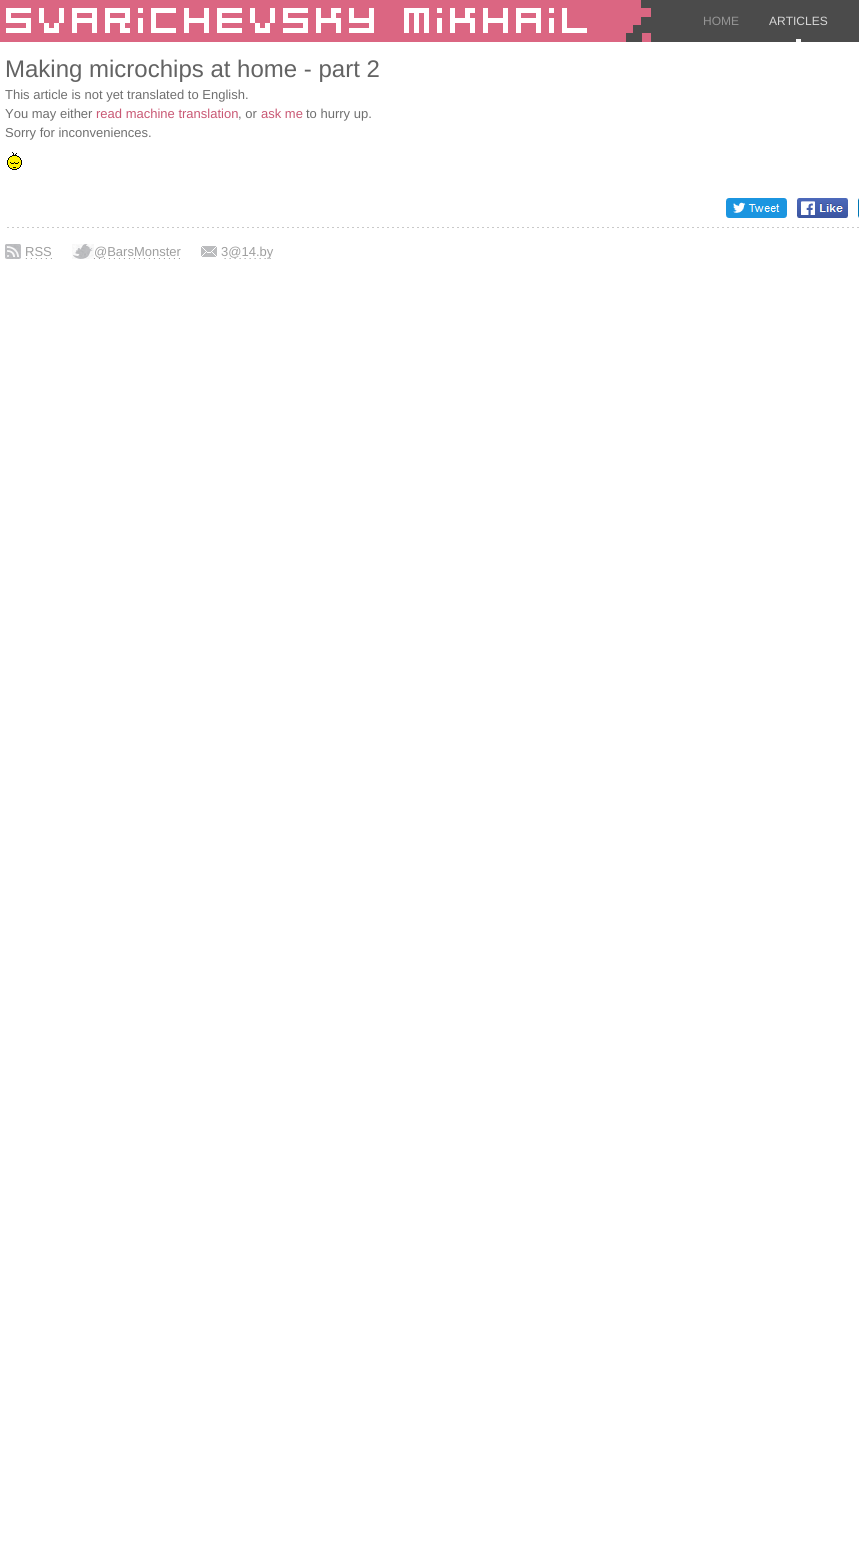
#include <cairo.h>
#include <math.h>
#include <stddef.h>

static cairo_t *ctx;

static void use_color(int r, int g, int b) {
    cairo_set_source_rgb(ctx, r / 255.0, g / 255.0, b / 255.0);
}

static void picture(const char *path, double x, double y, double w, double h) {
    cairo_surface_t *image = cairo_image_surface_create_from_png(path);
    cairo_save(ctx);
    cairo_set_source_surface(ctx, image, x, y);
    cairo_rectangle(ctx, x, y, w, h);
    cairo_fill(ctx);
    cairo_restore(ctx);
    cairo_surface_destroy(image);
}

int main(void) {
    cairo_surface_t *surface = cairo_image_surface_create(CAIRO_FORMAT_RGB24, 859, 1557);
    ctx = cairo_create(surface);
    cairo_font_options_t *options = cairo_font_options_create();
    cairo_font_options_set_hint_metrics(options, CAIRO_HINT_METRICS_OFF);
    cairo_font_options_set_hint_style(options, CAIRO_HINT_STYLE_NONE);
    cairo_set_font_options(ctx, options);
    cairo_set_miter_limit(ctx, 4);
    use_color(255, 255, 255);
    cairo_paint(ctx);
    use_color(219, 102, 130);
    cairo_rectangle(ctx, 0, 0, 5, 42);
    cairo_fill(ctx);
    picture("img1.png", 5, 0, 854, 42);
    cairo_select_font_face(ctx, "Liberation Sans", CAIRO_FONT_SLANT_NORMAL, CAIRO_FONT_WEIGHT_NORMAL);
    cairo_set_font_size(ctx, 12);
    use_color(149, 149, 149);
    cairo_move_to(ctx, 703, 25);
    cairo_show_text(ctx, "HOME");
    use_color(249, 249, 249);
    cairo_rectangle(ctx, 796, 39, 5, 3);
    cairo_fill(ctx);
    use_color(215, 215, 215);
    cairo_move_to(ctx, 769, 25);
    cairo_show_text(ctx, "ARTICLES");
    picture("img2.png", 7, 227, 852, 1);
    cairo_set_font_size(ctx, 24);
    use_color(99, 99, 99);
    cairo_move_to(ctx, 5, 77);
    cairo_show_text(ctx, "Making microchips at home - part 2");
    cairo_set_font_size(ctx, 13);
    use_color(111, 111, 111);
    cairo_move_to(ctx, 5, 99);
    cairo_show_text(ctx, "This article is not yet translated to English.");
    cairo_move_to(ctx, 5, 118);
    cairo_show_text(ctx, "You may either");
    use_color(201, 88, 116);
    cairo_move_to(ctx, 96, 118);
    cairo_show_text(ctx, "read machine translation");
    use_color(111, 111, 111);
    cairo_move_to(ctx, 238, 118);
    cairo_show_text(ctx, ", or");
    use_color(201, 88, 116);
    cairo_move_to(ctx, 261, 118);
    cairo_show_text(ctx, "ask me");
    use_color(111, 111, 111);
    cairo_move_to(ctx, 306, 118);
    cairo_show_text(ctx, "to hurry up.");
    cairo_move_to(ctx, 5, 137);
    cairo_show_text(ctx, "Sorry for inconveniences.");
    picture("img3.png", 7, 152, 15, 18);
    picture("img4.png", 726, 198, 61, 20);
    picture("img5.png", 797, 198, 51, 20);
    picture("img6.png", 858, 198, 1, 20);
    picture("img7.png", 5, 244, 16, 15);
    use_color(158, 158, 158);
    cairo_move_to(ctx, 25, 256);
    cairo_show_text(ctx, "RSS");
    picture("img8.png", 72, 244, 22, 15);
    cairo_move_to(ctx, 94, 256);
    cairo_show_text(ctx, "@BarsMonster");
    picture("img9.png", 201, 246, 16, 11);
    picture("img12.png", 224, 258, 47, 1);
    cairo_move_to(ctx, 221, 256);
    cairo_show_text(ctx, "3@14.by");
    picture("img10.png", 25, 258, 27, 1);
    picture("img11.png", 94, 258, 86, 1);
    cairo_surface_write_to_png(surface, "result.png");
    cairo_font_options_destroy(options);
    cairo_destroy(ctx);
    cairo_surface_destroy(surface);
    return 0;
}
